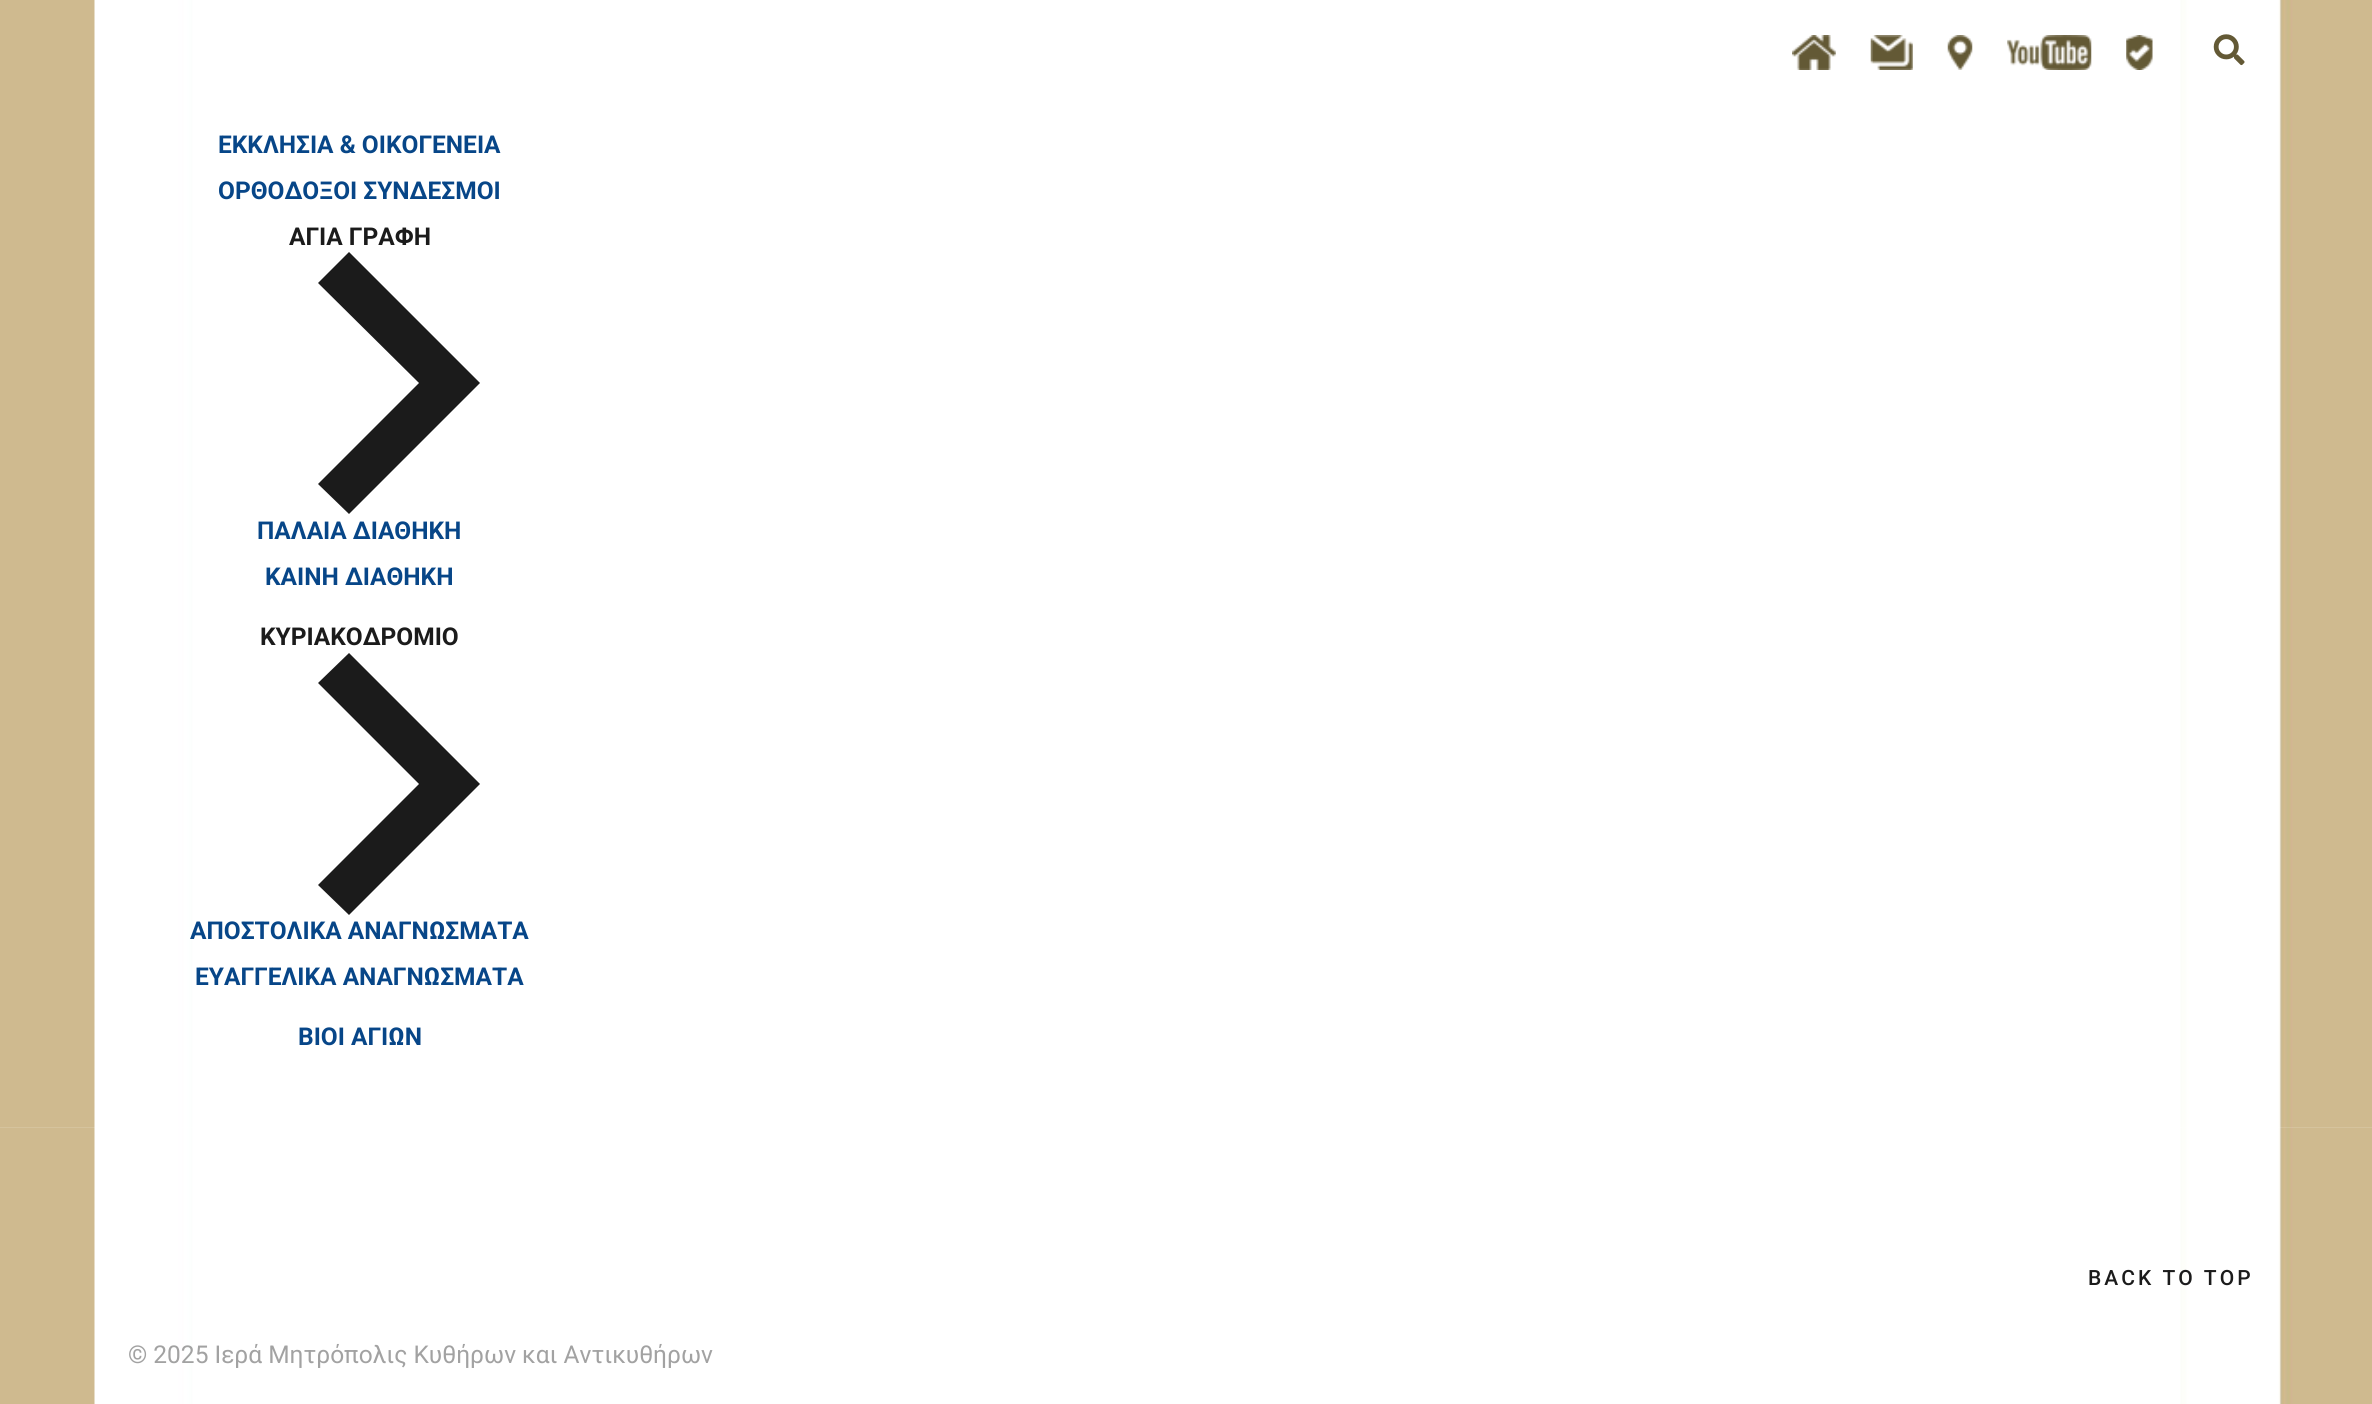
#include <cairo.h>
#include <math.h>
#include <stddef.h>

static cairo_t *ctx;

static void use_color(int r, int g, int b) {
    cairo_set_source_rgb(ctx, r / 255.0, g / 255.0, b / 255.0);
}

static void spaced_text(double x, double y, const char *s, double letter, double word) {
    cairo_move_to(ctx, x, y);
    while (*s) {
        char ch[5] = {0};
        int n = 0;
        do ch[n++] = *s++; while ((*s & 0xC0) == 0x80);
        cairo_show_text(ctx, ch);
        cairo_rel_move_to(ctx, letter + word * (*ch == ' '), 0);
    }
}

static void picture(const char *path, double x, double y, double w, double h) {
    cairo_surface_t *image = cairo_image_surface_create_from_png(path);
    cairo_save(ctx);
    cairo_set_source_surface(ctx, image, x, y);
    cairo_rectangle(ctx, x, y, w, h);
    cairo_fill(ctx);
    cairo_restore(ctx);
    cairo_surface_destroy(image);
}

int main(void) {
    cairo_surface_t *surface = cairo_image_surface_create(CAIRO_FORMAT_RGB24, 2372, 1404);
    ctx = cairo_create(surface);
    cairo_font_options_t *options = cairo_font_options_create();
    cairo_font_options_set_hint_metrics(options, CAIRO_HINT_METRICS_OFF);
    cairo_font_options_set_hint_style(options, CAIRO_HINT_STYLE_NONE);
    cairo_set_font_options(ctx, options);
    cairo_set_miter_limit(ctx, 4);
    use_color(255, 255, 255);
    cairo_paint(ctx);
    picture("img1.png", 0, 0, 2372, 131);
    picture("img2.png", 1792, 35, 44, 35);
    picture("img3.png", 1870, 35, 43, 35);
    picture("img4.png", 1947, 35, 26, 35);
    picture("img5.png", 2007, 35, 85, 35);
    picture("img6.png", 2126, 35, 27, 35);
    picture("img7.png", 2213, 34, 32, 32);
    picture("img8.png", 0, 131, 2372, 997);
    cairo_select_font_face(ctx, "Roboto", CAIRO_FONT_SLANT_NORMAL, CAIRO_FONT_WEIGHT_BOLD);
    cairo_set_font_size(ctx, 24.5);
    use_color(7, 70, 136);
    cairo_move_to(ctx, 218, 153);
    cairo_show_text(ctx, "ΕΚΚΛΗΣΙΑ & ΟΙΚΟΓΕΝΕΙΑ");
    cairo_move_to(ctx, 218, 199);
    cairo_show_text(ctx, "ΟΡΘΟΔΟΞΟΙ ΣΥΝΔΕΣΜΟΙ");
    use_color(27, 27, 27);
    cairo_move_to(ctx, 289, 245);
    cairo_show_text(ctx, "ΑΓΙΑ ΓΡΑΦΗ");
    cairo_new_path(ctx);
    cairo_move_to(ctx, 349, 252);
    cairo_line_to(ctx, 318, 283);
    cairo_line_to(ctx, 419, 383);
    cairo_line_to(ctx, 318, 484);
    cairo_line_to(ctx, 349, 514);
    cairo_line_to(ctx, 480, 383);
    cairo_close_path(ctx);
    cairo_fill(ctx);
    use_color(7, 70, 136);
    cairo_move_to(ctx, 257, 539);
    cairo_show_text(ctx, "ΠΑΛΑΙΑ ΔΙΑΘΗΚΗ");
    cairo_move_to(ctx, 265, 585);
    cairo_show_text(ctx, "ΚΑΙΝΗ ΔΙΑΘΗΚΗ");
    use_color(27, 27, 27);
    cairo_move_to(ctx, 260, 645);
    cairo_show_text(ctx, "ΚΥΡΙΑΚΟΔΡΟΜΙΟ");
    cairo_new_path(ctx);
    cairo_move_to(ctx, 349, 653);
    cairo_line_to(ctx, 318, 683);
    cairo_line_to(ctx, 419, 784);
    cairo_line_to(ctx, 318, 885);
    cairo_line_to(ctx, 349, 915);
    cairo_line_to(ctx, 480, 784);
    cairo_close_path(ctx);
    cairo_fill(ctx);
    use_color(7, 70, 136);
    cairo_move_to(ctx, 190, 939);
    cairo_show_text(ctx, "ΑΠΟΣΤΟΛΙΚΑ ΑΝΑΓΝΩΣΜΑΤΑ");
    cairo_move_to(ctx, 195, 985);
    cairo_show_text(ctx, "ΕΥΑΓΓΕΛΙΚΑ ΑΝΑΓΝΩΣΜΑΤΑ");
    cairo_move_to(ctx, 298, 1045);
    cairo_show_text(ctx, "ΒΙΟΙ ΑΓΙΩΝ");
    picture("img9.png", 0, 1128, 2372, 175);
    cairo_select_font_face(ctx, "Roboto Medium", CAIRO_FONT_SLANT_NORMAL, CAIRO_FONT_WEIGHT_NORMAL);
    cairo_set_font_size(ctx, 21);
    use_color(27, 27, 27);
    spaced_text(2088, 1285, "BACK TO TOP", 3, 0);
    picture("img10.png", 0, 1303, 2372, 101);
    cairo_select_font_face(ctx, "Roboto", CAIRO_FONT_SLANT_NORMAL, CAIRO_FONT_WEIGHT_NORMAL);
    cairo_set_font_size(ctx, 24.5);
    use_color(162, 162, 162);
    cairo_move_to(ctx, 128, 1363);
    cairo_show_text(ctx, "© 2025 Ιερά Μητρόπολις Κυθήρων και Αντικυθήρων");
    cairo_surface_write_to_png(surface, "result.png");
    cairo_font_options_destroy(options);
    cairo_destroy(ctx);
    cairo_surface_destroy(surface);
    return 0;
}
